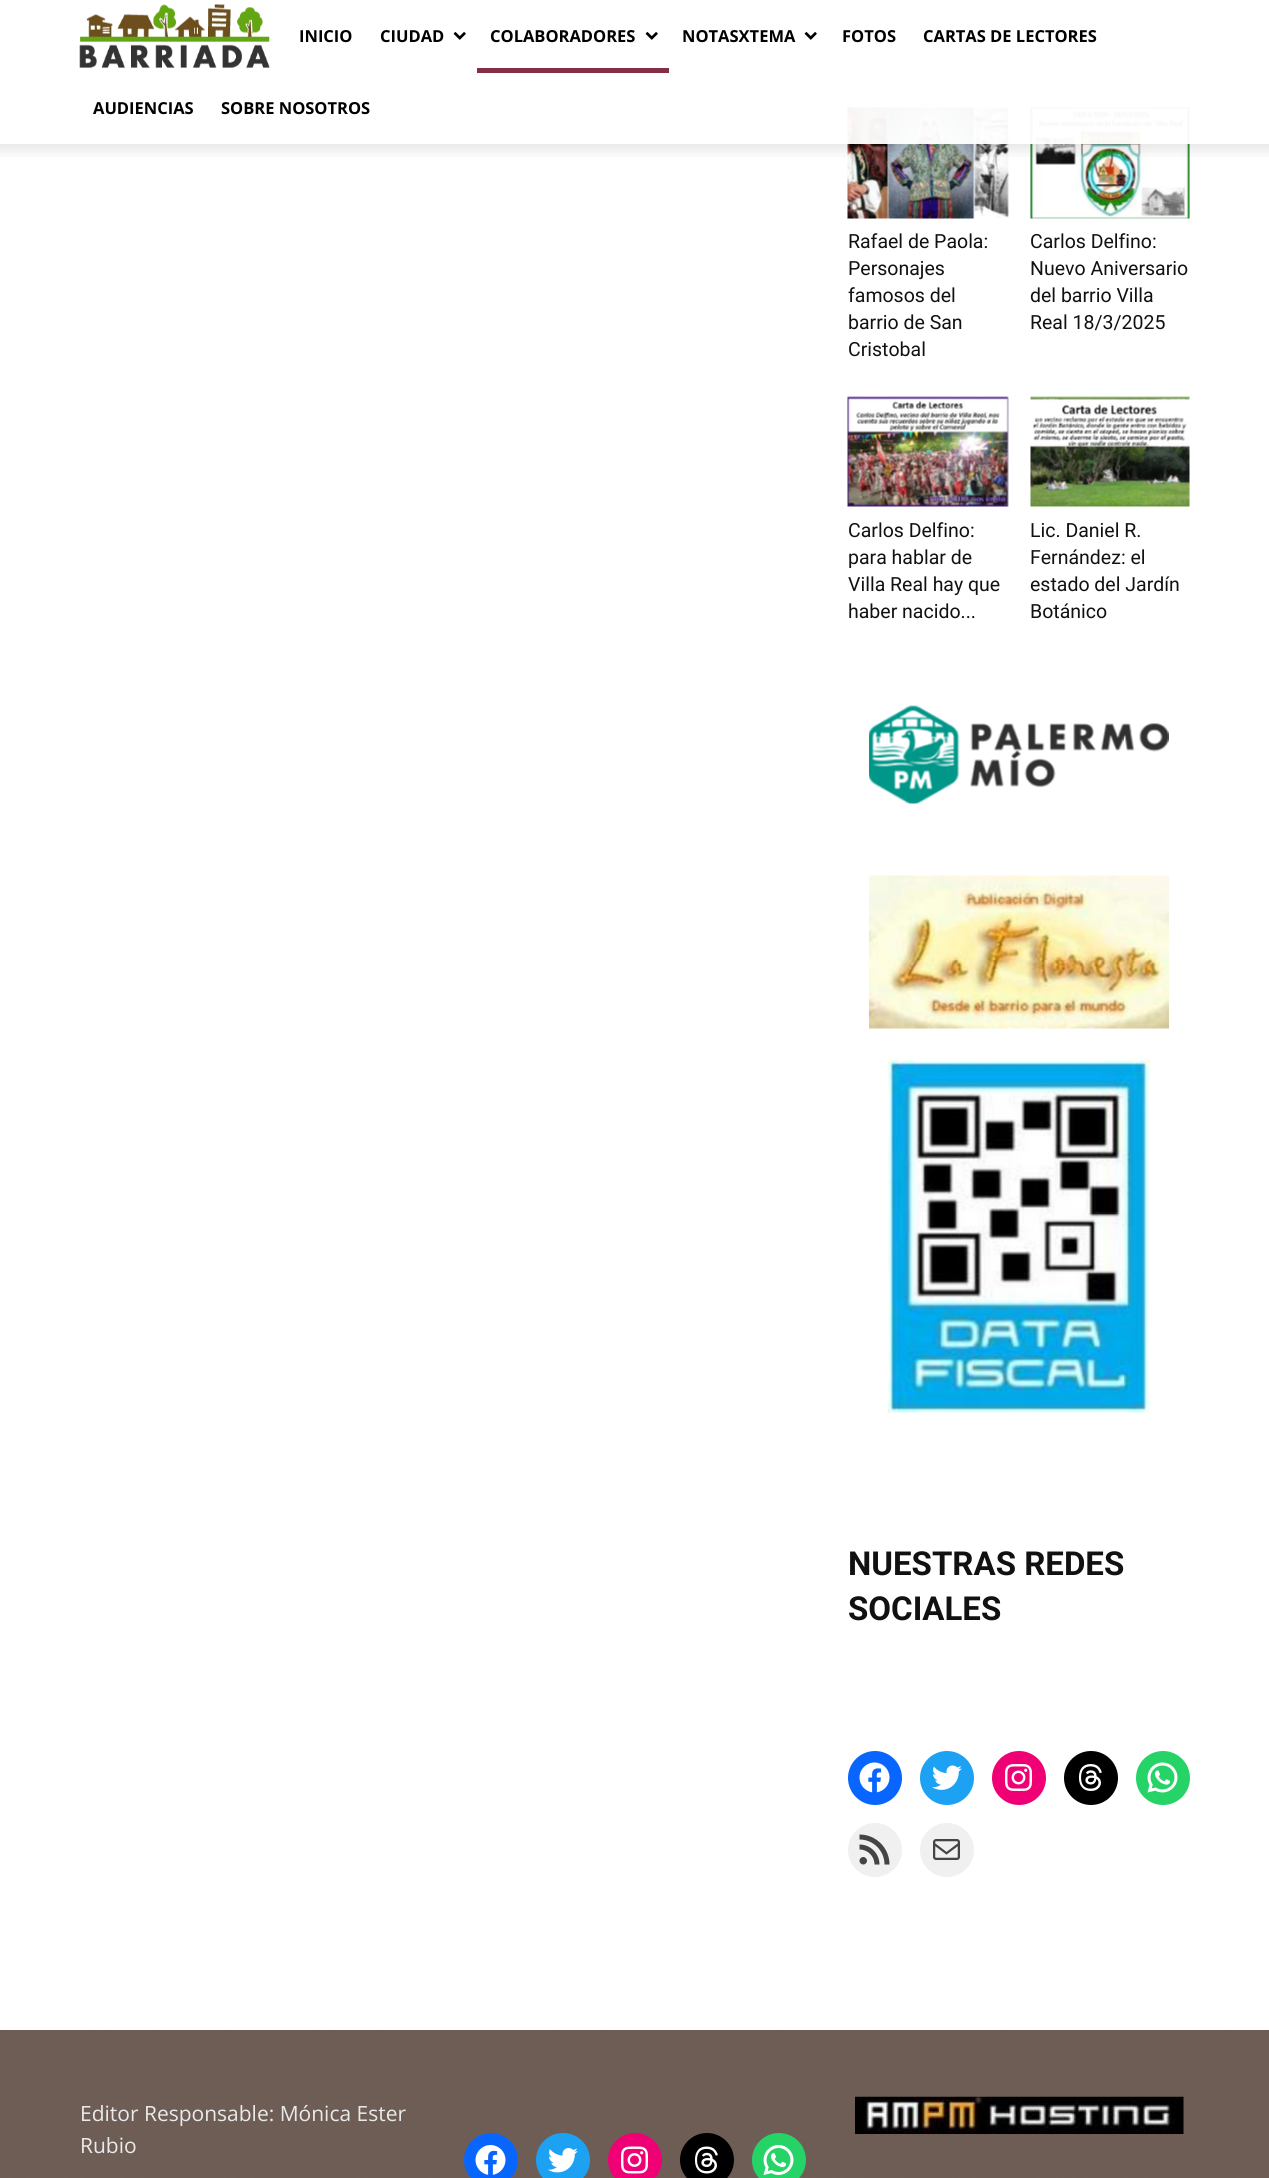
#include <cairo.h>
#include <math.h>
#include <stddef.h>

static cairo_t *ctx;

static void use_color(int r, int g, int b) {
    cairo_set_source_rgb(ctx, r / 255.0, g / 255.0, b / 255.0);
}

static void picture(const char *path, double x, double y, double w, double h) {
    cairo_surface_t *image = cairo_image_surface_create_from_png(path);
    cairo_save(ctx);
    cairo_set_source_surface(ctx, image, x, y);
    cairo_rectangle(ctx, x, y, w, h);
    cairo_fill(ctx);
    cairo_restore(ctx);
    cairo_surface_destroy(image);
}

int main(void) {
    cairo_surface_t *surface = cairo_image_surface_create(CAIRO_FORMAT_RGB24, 1269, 2178);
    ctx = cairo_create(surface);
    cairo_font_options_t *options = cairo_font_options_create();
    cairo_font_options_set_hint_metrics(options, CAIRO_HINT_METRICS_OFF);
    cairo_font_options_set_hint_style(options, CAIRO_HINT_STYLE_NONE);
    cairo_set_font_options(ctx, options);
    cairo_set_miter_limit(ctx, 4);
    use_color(255, 255, 255);
    cairo_paint(ctx);
    picture("img1.png", 0, 2030, 1269, 148);
    picture("img5.png", 847, 107, 162, 112);
    picture("img6.png", 1030, 107, 160, 112);
    cairo_set_source_rgba(ctx, 1, 1, 1, 0.95);
    cairo_rectangle(ctx, 847, 107, 343, 37);
    cairo_fill(ctx);
    picture("img2.png", 79, 4, 191, 64);
    cairo_select_font_face(ctx, "Open Sans", CAIRO_FONT_SLANT_NORMAL, CAIRO_FONT_WEIGHT_BOLD);
    cairo_set_font_size(ctx, 16.5);
    use_color(0, 0, 0);
    cairo_move_to(ctx, 299, 42);
    cairo_show_text(ctx, "INICIO");
    cairo_move_to(ctx, 380, 42);
    cairo_show_text(ctx, "CIUDAD");
    picture("img3.png", 453, 32, 13, 8);
    cairo_move_to(ctx, 490, 42);
    cairo_show_text(ctx, "COLABORADORES");
    picture("img3.png", 645, 32, 13, 8);
    use_color(132, 47, 70);
    cairo_rectangle(ctx, 477, 68, 192, 5);
    cairo_fill(ctx);
    use_color(0, 0, 0);
    cairo_move_to(ctx, 682, 42);
    cairo_show_text(ctx, "NOTASXTEMA");
    picture("img3.png", 804, 32, 13, 8);
    cairo_move_to(ctx, 842, 42);
    cairo_show_text(ctx, "FOTOS");
    cairo_move_to(ctx, 923, 42);
    cairo_show_text(ctx, "CARTAS DE LECTORES");
    cairo_move_to(ctx, 93, 114);
    cairo_show_text(ctx, "AUDIENCIAS");
    cairo_move_to(ctx, 221, 114);
    cairo_show_text(ctx, "SOBRE NOSOTROS");
    picture("img4.png", 0, 144, 1269, 13);
    cairo_select_font_face(ctx, "Roboto", CAIRO_FONT_SLANT_NORMAL, CAIRO_FONT_WEIGHT_NORMAL);
    cairo_set_font_size(ctx, 19.5);
    use_color(17, 17, 17);
    cairo_move_to(ctx, 848, 248);
    cairo_show_text(ctx, "Rafael de Paola:");
    cairo_move_to(ctx, 848, 275);
    cairo_show_text(ctx, "Personajes");
    cairo_move_to(ctx, 848, 302);
    cairo_show_text(ctx, "famosos del");
    cairo_move_to(ctx, 848, 329);
    cairo_show_text(ctx, "barrio de San");
    cairo_move_to(ctx, 848, 356);
    cairo_show_text(ctx, "Cristobal");
    cairo_move_to(ctx, 1030, 248);
    cairo_show_text(ctx, "Carlos Delfino:");
    cairo_move_to(ctx, 1030, 275);
    cairo_show_text(ctx, "Nuevo Aniversario");
    cairo_move_to(ctx, 1030, 302);
    cairo_show_text(ctx, "del barrio Villa");
    cairo_move_to(ctx, 1030, 329);
    cairo_show_text(ctx, "Real 18/3/2025");
    picture("img7.png", 847, 396, 162, 111);
    cairo_move_to(ctx, 848, 537);
    cairo_show_text(ctx, "Carlos Delfino:");
    cairo_move_to(ctx, 848, 564);
    cairo_show_text(ctx, "para hablar de");
    cairo_move_to(ctx, 848, 591);
    cairo_show_text(ctx, "Villa Real hay que");
    cairo_move_to(ctx, 848, 618);
    cairo_show_text(ctx, "haber nacido...");
    picture("img8.png", 1030, 396, 160, 111);
    cairo_move_to(ctx, 1030, 537);
    cairo_show_text(ctx, "Lic. Daniel R.");
    cairo_move_to(ctx, 1030, 564);
    cairo_show_text(ctx, "Fernández: el");
    cairo_move_to(ctx, 1030, 591);
    cairo_show_text(ctx, "estado del Jardín");
    cairo_move_to(ctx, 1030, 618);
    cairo_show_text(ctx, "Botánico");
    picture("img9.png", 869, 705, 300, 99);
    picture("img10.png", 869, 875, 300, 154);
    picture("img11.png", 887, 1059, 264, 354);
    cairo_select_font_face(ctx, "Roboto", CAIRO_FONT_SLANT_NORMAL, CAIRO_FONT_WEIGHT_BOLD);
    cairo_set_font_size(ctx, 33);
    cairo_move_to(ctx, 848, 1575);
    cairo_show_text(ctx, "NUESTRAS REDES");
    cairo_move_to(ctx, 848, 1620);
    cairo_show_text(ctx, "SOCIALES");
    use_color(8, 102, 255);
    cairo_new_path(ctx);
    cairo_arc(ctx, 875, 1778, 27, 0, 2 * M_PI);
    cairo_fill(ctx);
    picture("img12.png", 859, 1762, 31, 31);
    use_color(29, 161, 242);
    cairo_arc(ctx, 947, 1778, 27, 0, 2 * M_PI);
    cairo_fill(ctx);
    picture("img13.png", 932, 1765, 30, 25);
    use_color(240, 0, 117);
    cairo_arc(ctx, 1019, 1778, 27, 0, 2 * M_PI);
    cairo_fill(ctx);
    picture("img14.png", 1005, 1764, 27, 27);
    use_color(0, 0, 0);
    cairo_arc(ctx, 1091, 1778, 27, 0, 2 * M_PI);
    cairo_fill(ctx);
    picture("img15.png", 1078, 1764, 24, 27);
    use_color(37, 211, 102);
    cairo_arc(ctx, 1163, 1778, 27, 0, 2 * M_PI);
    cairo_fill(ctx);
    picture("img16.png", 1147, 1762, 31, 31);
    use_color(240, 240, 240);
    cairo_arc(ctx, 875, 1850, 27, 0, 2 * M_PI);
    cairo_fill(ctx);
    picture("img17.png", 859, 1834, 31, 31);
    cairo_arc(ctx, 947, 1850, 27, 0, 2 * M_PI);
    cairo_fill(ctx);
    picture("img18.png", 933, 1839, 27, 21);
    cairo_set_source_rgba(ctx, 0.349, 0.275, 0.239, 0.87);
    cairo_rectangle(ctx, 0, 2030, 1269, 148);
    cairo_fill(ctx);
    cairo_select_font_face(ctx, "Open Sans", CAIRO_FONT_SLANT_NORMAL, CAIRO_FONT_WEIGHT_NORMAL);
    cairo_set_font_size(ctx, 21);
    use_color(234, 234, 234);
    cairo_move_to(ctx, 80, 2121);
    cairo_show_text(ctx, "Editor Responsable: Mónica Ester");
    cairo_move_to(ctx, 80, 2153);
    cairo_show_text(ctx, "Rubio");
    use_color(8, 102, 255);
    cairo_new_path(ctx);
    cairo_arc(ctx, 491, 2160, 27, 0, 2 * M_PI);
    cairo_fill(ctx);
    picture("img19.png", 475, 2145, 31, 30);
    use_color(29, 161, 242);
    cairo_arc(ctx, 563, 2160, 27, 0, 2 * M_PI);
    cairo_fill(ctx);
    picture("img20.png", 548, 2148, 30, 25);
    use_color(240, 0, 117);
    cairo_arc(ctx, 635, 2160, 27, 0, 2 * M_PI);
    cairo_fill(ctx);
    picture("img21.png", 621, 2146, 27, 28);
    use_color(0, 0, 0);
    cairo_arc(ctx, 707, 2160, 27, 0, 2 * M_PI);
    cairo_fill(ctx);
    picture("img22.png", 694, 2146, 24, 28);
    use_color(37, 211, 102);
    cairo_arc(ctx, 779, 2160, 27, 0, 2 * M_PI);
    cairo_fill(ctx);
    picture("img23.png", 763, 2145, 31, 30);
    picture("img24.png", 855, 2096, 329, 38);
    cairo_surface_write_to_png(surface, "result.png");
    cairo_font_options_destroy(options);
    cairo_destroy(ctx);
    cairo_surface_destroy(surface);
    return 0;
}
